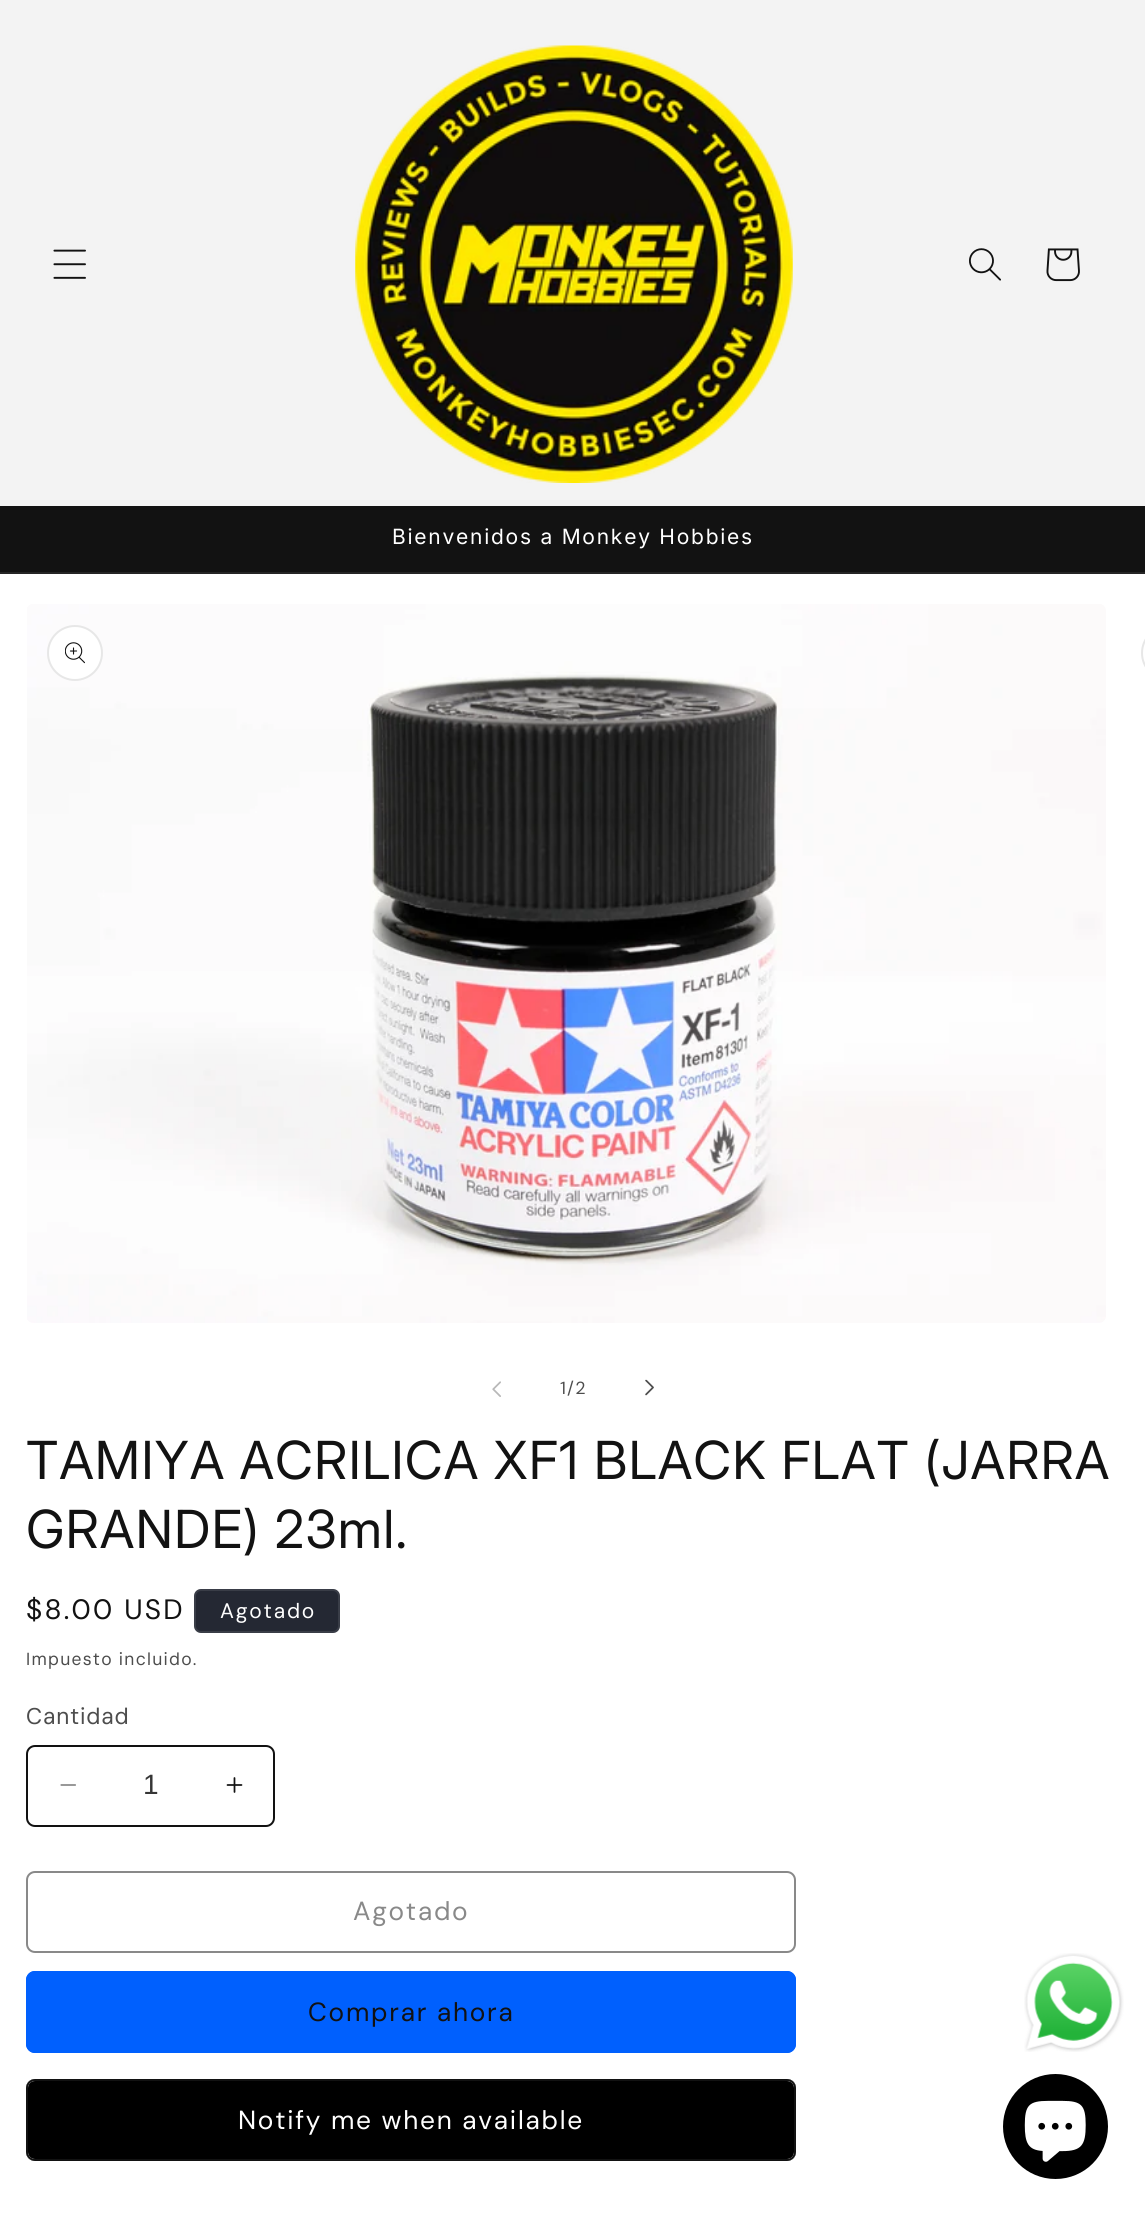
#include <cairo.h>
#include <math.h>
#include <stddef.h>

static cairo_t *ctx;

static void use_color(int r, int g, int b) {
    cairo_set_source_rgb(ctx, r / 255.0, g / 255.0, b / 255.0);
}

static void spaced_text(double x, double y, const char *s, double letter, double word) {
    cairo_move_to(ctx, x, y);
    while (*s) {
        char ch[5] = {0};
        int n = 0;
        do ch[n++] = *s++; while ((*s & 0xC0) == 0x80);
        cairo_show_text(ctx, ch);
        cairo_rel_move_to(ctx, letter + word * (*ch == ' '), 0);
    }
}

static void round_rect(double x, double y, double w, double h, double r) {
    cairo_new_sub_path(ctx);
    cairo_arc(ctx, x + w - r, y + h - r, r, 0, M_PI / 2);
    cairo_arc(ctx, x + r, y + h - r, r, M_PI / 2, M_PI);
    cairo_arc(ctx, x + r, y + r, r, M_PI, 1.5 * M_PI);
    cairo_arc(ctx, x + w - r, y + r, r, 1.5 * M_PI, 2 * M_PI);
    cairo_close_path(ctx);
}

static void picture(const char *path, double x, double y, double w, double h) {
    cairo_surface_t *image = cairo_image_surface_create_from_png(path);
    cairo_save(ctx);
    cairo_set_source_surface(ctx, image, x, y);
    cairo_rectangle(ctx, x, y, w, h);
    cairo_fill(ctx);
    cairo_restore(ctx);
    cairo_surface_destroy(image);
}

int main(void) {
    cairo_surface_t *surface = cairo_image_surface_create(CAIRO_FORMAT_RGB24, 1145, 2215);
    ctx = cairo_create(surface);
    cairo_font_options_t *options = cairo_font_options_create();
    cairo_font_options_set_hint_metrics(options, CAIRO_HINT_METRICS_OFF);
    cairo_font_options_set_hint_style(options, CAIRO_HINT_STYLE_NONE);
    cairo_set_font_options(ctx, options);
    cairo_set_miter_limit(ctx, 4);
    use_color(255, 255, 255);
    cairo_paint(ctx);
    use_color(243, 243, 243);
    cairo_rectangle(ctx, 0, 0, 1145, 506);
    cairo_fill(ctx);
    picture("img1.png", 53, 249, 33, 30);
    picture("img2.png", 355, 45, 438, 438);
    picture("img3.png", 969, 248, 32, 33);
    picture("img4.png", 1046, 248, 34, 34);
    use_color(18, 18, 18);
    cairo_rectangle(ctx, 0, 506, 1145, 66);
    cairo_fill(ctx);
    use_color(37, 37, 37);
    cairo_rectangle(ctx, 0, 572, 1145, 2);
    cairo_fill(ctx);
    cairo_select_font_face(ctx, "Inter", CAIRO_FONT_SLANT_NORMAL, CAIRO_FONT_WEIGHT_NORMAL);
    cairo_set_font_size(ctx, 21);
    use_color(255, 255, 255);
    spaced_text(392, 544, "Bienvenidos a Monkey Hobbies", 1.75, 0);
    picture("img5.png", 27, 604, 1079, 719);
    cairo_arc(ctx, 75, 653, 27, 0, 2 * M_PI);
    cairo_fill_preserve(ctx);
    use_color(231, 231, 231);
    cairo_stroke(ctx);
    picture("img6.png", 65, 642, 20, 22);
    round_rect(1142, 626, 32, 54, 27);
    cairo_stroke(ctx);
    picture("img7.png", 492, 1381, 9, 16);
    cairo_select_font_face(ctx, "DM Sans", CAIRO_FONT_SLANT_NORMAL, CAIRO_FONT_WEIGHT_NORMAL);
    cairo_set_font_size(ctx, 17.5);
    use_color(77, 77, 77);
    spaced_text(560, 1394, "1", 1.25, 0);
    cairo_select_font_face(ctx, "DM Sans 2", CAIRO_FONT_SLANT_NORMAL, CAIRO_FONT_WEIGHT_NORMAL);
    spaced_text(567, 1394, "/2", 1.25, 0);
    picture("img8.png", 645, 1379, 9, 17);
    cairo_select_font_face(ctx, "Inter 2", CAIRO_FONT_SLANT_NORMAL, CAIRO_FONT_WEIGHT_NORMAL);
    cairo_set_font_size(ctx, 52.5);
    use_color(18, 18, 18);
    spaced_text(26, 1479, "TAMIYA ACRILICA XF1 BLACK FLAT (JARRA", 1.05, 0);
    spaced_text(26, 1548, "GRANDE) 23ml.", 1.05, 0);
    cairo_select_font_face(ctx, "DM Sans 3", CAIRO_FONT_SLANT_NORMAL, CAIRO_FONT_WEIGHT_NORMAL);
    cairo_set_font_size(ctx, 28);
    spaced_text(26, 1619, "$8.00 USD", 2.25, 0);
    use_color(36, 40, 51);
    round_rect(194, 1589, 146, 44, 7);
    cairo_fill(ctx);
    round_rect(195, 1590, 144, 42, 6);
    cairo_set_source_rgba(ctx, 1, 1, 1, 0.1);
    cairo_stroke(ctx);
    cairo_select_font_face(ctx, "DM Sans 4", CAIRO_FONT_SLANT_NORMAL, CAIRO_FONT_WEIGHT_NORMAL);
    cairo_set_font_size(ctx, 21);
    use_color(255, 255, 255);
    spaced_text(220, 1618, "Agotado", 1.75, 0);
    cairo_select_font_face(ctx, "DM Sans 2", CAIRO_FONT_SLANT_NORMAL, CAIRO_FONT_WEIGHT_NORMAL);
    cairo_set_font_size(ctx, 17.5);
    use_color(77, 77, 77);
    spaced_text(26, 1665, "Impuesto incluido.", 1.25, 0);
    cairo_set_font_size(ctx, 22.75);
    spaced_text(26, 1724, "Cantidad", 0.75, 0);
    picture("img9.png", 60, 1784, 16, 2);
    picture("img10.png", 226, 1777, 17, 16);
    round_rect(27, 1746, 247, 80, 8);
    use_color(18, 18, 18);
    cairo_stroke(ctx);
    cairo_select_font_face(ctx, "Liberation Sans", CAIRO_FONT_SLANT_NORMAL, CAIRO_FONT_WEIGHT_NORMAL);
    cairo_set_font_size(ctx, 28);
    use_color(54, 54, 54);
    cairo_move_to(ctx, 143, 1794);
    cairo_show_text(ctx, "1");
    round_rect(27, 1872, 768, 80, 8);
    use_color(137, 137, 137);
    cairo_stroke(ctx);
    cairo_select_font_face(ctx, "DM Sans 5", CAIRO_FONT_SLANT_NORMAL, CAIRO_FONT_WEIGHT_NORMAL);
    cairo_set_font_size(ctx, 26.25);
    spaced_text(353, 1920, "Agotado", 1.75, 0);
    use_color(0, 96, 254);
    round_rect(26, 1971, 770, 82, 9);
    cairo_fill(ctx);
    round_rect(27, 1972, 768, 80, 8);
    cairo_stroke(ctx);
    use_color(18, 18, 18);
    spaced_text(308, 2021, "Comprar ahora", 1.75, 0);
    use_color(0, 0, 0);
    round_rect(26, 2079, 770, 82, 9);
    cairo_fill(ctx);
    round_rect(27, 2080, 768, 80, 8);
    use_color(255, 255, 255);
    cairo_stroke(ctx);
    round_rect(27, 2080, 768, 80, 8);
    use_color(18, 18, 18);
    cairo_stroke(ctx);
    use_color(255, 255, 255);
    spaced_text(238, 2129, "Notify me when available", 1.75, 0);
    picture("img11.png", 1024, 1953, 100, 99);
    use_color(0, 0, 0);
    cairo_arc(ctx, 1055.5, 2126.5, 52.5, 0, 2 * M_PI);
    cairo_fill(ctx);
    picture("img12.png", 1024, 2100, 62, 62);
    cairo_surface_write_to_png(surface, "result.png");
    cairo_font_options_destroy(options);
    cairo_destroy(ctx);
    cairo_surface_destroy(surface);
    return 0;
}
